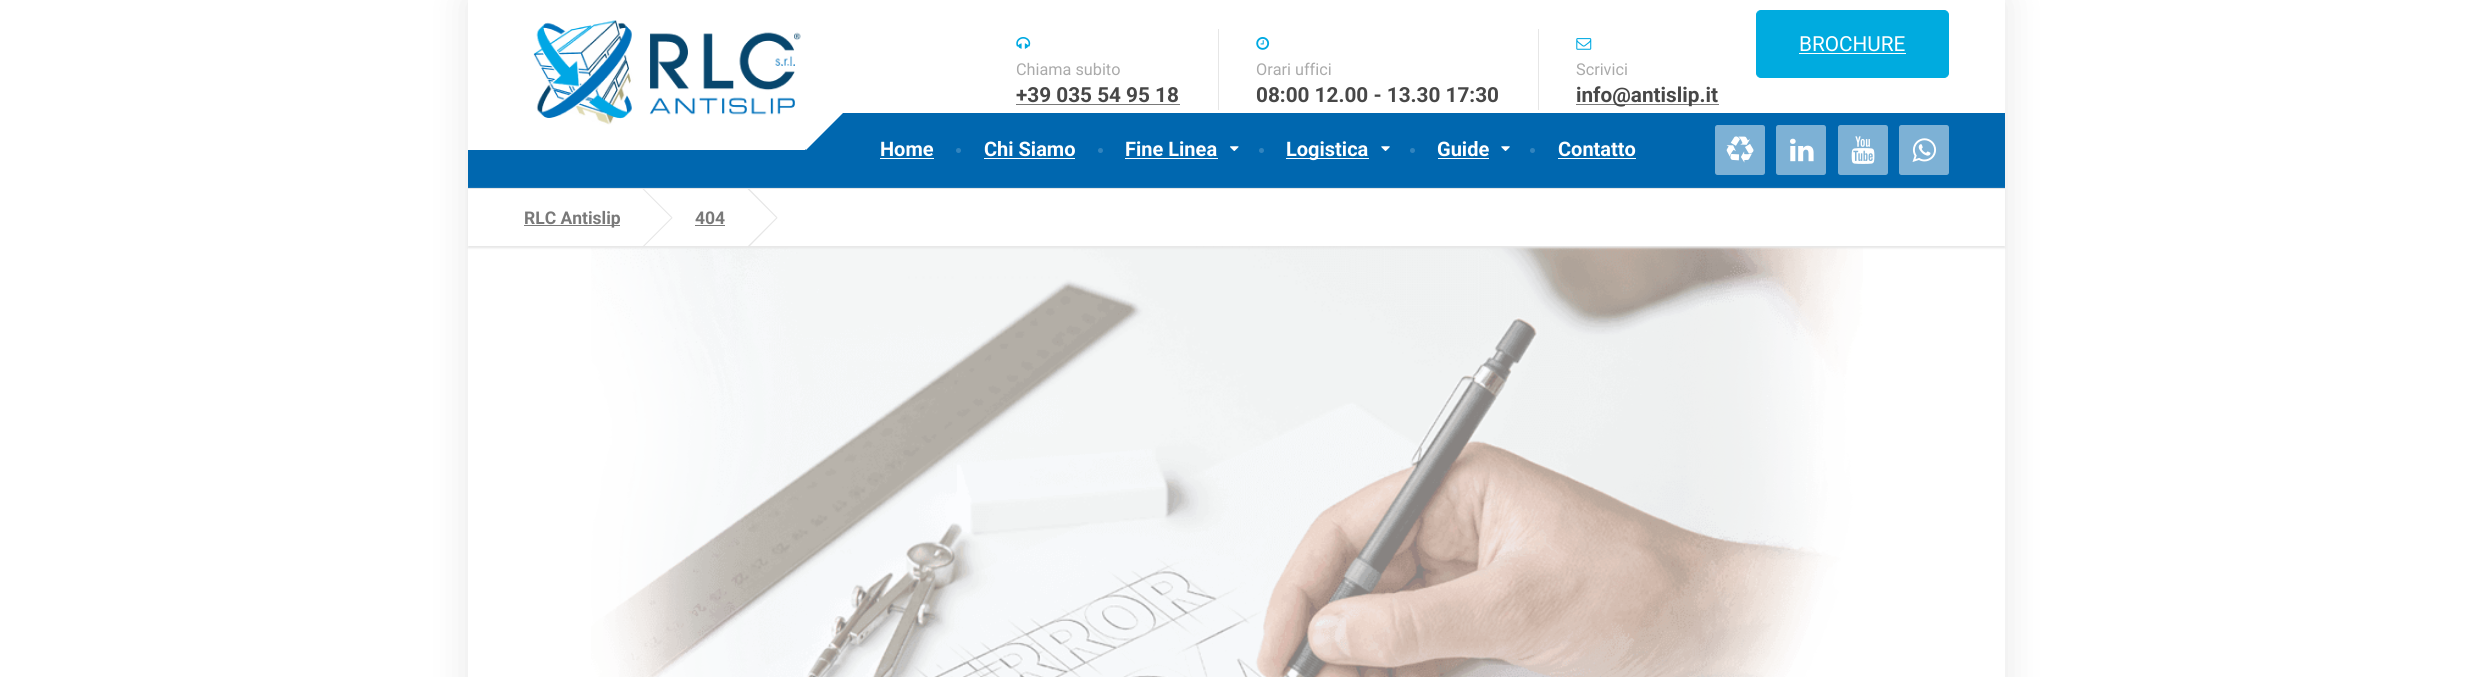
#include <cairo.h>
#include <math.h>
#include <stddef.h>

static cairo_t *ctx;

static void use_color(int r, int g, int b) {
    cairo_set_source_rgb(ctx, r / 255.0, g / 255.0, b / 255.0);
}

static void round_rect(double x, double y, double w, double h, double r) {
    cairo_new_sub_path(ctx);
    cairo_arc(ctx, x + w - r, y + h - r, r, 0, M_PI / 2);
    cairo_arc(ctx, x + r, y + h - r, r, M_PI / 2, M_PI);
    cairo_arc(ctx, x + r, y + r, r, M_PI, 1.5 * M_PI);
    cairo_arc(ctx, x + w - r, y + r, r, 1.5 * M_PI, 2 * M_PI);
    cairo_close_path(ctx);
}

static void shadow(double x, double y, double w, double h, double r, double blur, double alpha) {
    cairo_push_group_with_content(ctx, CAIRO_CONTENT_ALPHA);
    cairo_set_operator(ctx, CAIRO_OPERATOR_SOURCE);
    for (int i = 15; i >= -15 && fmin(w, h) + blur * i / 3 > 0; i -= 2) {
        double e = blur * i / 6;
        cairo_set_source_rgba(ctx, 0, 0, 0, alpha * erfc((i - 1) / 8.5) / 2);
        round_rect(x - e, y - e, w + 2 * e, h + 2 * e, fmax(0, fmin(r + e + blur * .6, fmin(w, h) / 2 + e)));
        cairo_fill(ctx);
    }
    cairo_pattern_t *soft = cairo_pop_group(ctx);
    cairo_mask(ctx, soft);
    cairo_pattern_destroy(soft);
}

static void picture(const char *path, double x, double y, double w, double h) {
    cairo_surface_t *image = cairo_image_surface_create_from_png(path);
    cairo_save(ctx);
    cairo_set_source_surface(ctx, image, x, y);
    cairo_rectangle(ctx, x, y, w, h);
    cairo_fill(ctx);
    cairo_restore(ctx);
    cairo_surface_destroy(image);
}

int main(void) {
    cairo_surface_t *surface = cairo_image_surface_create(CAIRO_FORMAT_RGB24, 2472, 677);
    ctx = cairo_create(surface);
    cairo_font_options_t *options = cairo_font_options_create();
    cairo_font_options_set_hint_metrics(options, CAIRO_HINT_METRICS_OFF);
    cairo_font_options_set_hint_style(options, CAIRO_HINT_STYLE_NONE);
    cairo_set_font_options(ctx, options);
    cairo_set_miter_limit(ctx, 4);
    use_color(255, 255, 255);
    cairo_paint(ctx);
    cairo_save(ctx);
    cairo_set_fill_rule(ctx, CAIRO_FILL_RULE_EVEN_ODD);
    cairo_new_path(ctx);
    cairo_move_to(ctx, 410, 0);
    cairo_line_to(ctx, 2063, 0);
    cairo_line_to(ctx, 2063, 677);
    cairo_line_to(ctx, 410, 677);
    cairo_close_path(ctx);
    cairo_move_to(ctx, 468, 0);
    cairo_line_to(ctx, 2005, 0);
    cairo_line_to(ctx, 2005, 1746);
    cairo_line_to(ctx, 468, 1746);
    cairo_close_path(ctx);
    cairo_clip(ctx);
    use_color(0, 0, 0);
    shadow(468, 0, 1537, 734, 0, 19, 0.1);
    cairo_restore(ctx);
    use_color(0, 103, 175);
    cairo_rectangle(ctx, 468, 113, 1537, 75);
    cairo_fill(ctx);
    use_color(255, 255, 255);
    cairo_rectangle(ctx, 468, 113, 337, 37);
    cairo_fill(ctx);
    cairo_new_path(ctx);
    cairo_move_to(ctx, 844, 112);
    cairo_line_to(ctx, 806, 150);
    cairo_line_to(ctx, 768, 112);
    cairo_line_to(ctx, 806, 74);
    cairo_close_path(ctx);
    cairo_fill(ctx);
    picture("img1.png", 533, 20, 268, 105);
    use_color(0, 171, 223);
    round_rect(1756.5, 10.5, 192, 67, 4.5);
    cairo_fill_preserve(ctx);
    cairo_set_line_width(ctx, 1);
    cairo_stroke(ctx);
    cairo_select_font_face(ctx, "Roboto", CAIRO_FONT_SLANT_NORMAL, CAIRO_FONT_WEIGHT_NORMAL);
    cairo_set_font_size(ctx, 20.75);
    use_color(255, 255, 255);
    cairo_move_to(ctx, 1799, 51);
    cairo_show_text(ctx, "BROCHURE");
    cairo_rectangle(ctx, 1799, 53, 107, 1);
    cairo_fill(ctx);
    picture("img2.png", 1016, 37, 15, 12);
    cairo_set_font_size(ctx, 16.25);
    use_color(170, 170, 170);
    cairo_move_to(ctx, 1016, 75);
    cairo_show_text(ctx, "Chiama subito");
    cairo_select_font_face(ctx, "Roboto", CAIRO_FONT_SLANT_NORMAL, CAIRO_FONT_WEIGHT_BOLD);
    cairo_set_font_size(ctx, 20.75);
    use_color(71, 71, 71);
    cairo_move_to(ctx, 1016, 102);
    cairo_show_text(ctx, "+39 035 54 95 18");
    use_color(121, 121, 121);
    cairo_rectangle(ctx, 1016, 104, 164, 1);
    cairo_fill(ctx);
    use_color(230, 230, 230);
    cairo_rectangle(ctx, 1218, 29, 1, 81);
    cairo_fill(ctx);
    picture("img3.png", 1256, 37, 14, 13);
    cairo_select_font_face(ctx, "Roboto", CAIRO_FONT_SLANT_NORMAL, CAIRO_FONT_WEIGHT_NORMAL);
    cairo_set_font_size(ctx, 16.25);
    use_color(170, 170, 170);
    cairo_move_to(ctx, 1256, 75);
    cairo_show_text(ctx, "Orari uffici");
    cairo_select_font_face(ctx, "Roboto", CAIRO_FONT_SLANT_NORMAL, CAIRO_FONT_WEIGHT_BOLD);
    cairo_set_font_size(ctx, 20.75);
    use_color(71, 71, 71);
    cairo_move_to(ctx, 1256, 102);
    cairo_show_text(ctx, "08:00 12.00 - 13.30 17:30");
    use_color(230, 230, 230);
    cairo_rectangle(ctx, 1538, 29, 1, 81);
    cairo_fill(ctx);
    picture("img4.png", 1576, 38, 16, 12);
    cairo_select_font_face(ctx, "Roboto", CAIRO_FONT_SLANT_NORMAL, CAIRO_FONT_WEIGHT_NORMAL);
    cairo_set_font_size(ctx, 16.25);
    use_color(170, 170, 170);
    cairo_move_to(ctx, 1576, 75);
    cairo_show_text(ctx, "Scrivici");
    use_color(121, 121, 121);
    cairo_rectangle(ctx, 1576, 104, 143, 1);
    cairo_fill(ctx);
    cairo_select_font_face(ctx, "Roboto", CAIRO_FONT_SLANT_NORMAL, CAIRO_FONT_WEIGHT_BOLD);
    cairo_set_font_size(ctx, 20.75);
    use_color(71, 71, 71);
    cairo_move_to(ctx, 1576, 102);
    cairo_show_text(ctx, "info@antislip.it");
    cairo_set_font_size(ctx, 20);
    use_color(255, 255, 255);
    cairo_move_to(ctx, 880, 156);
    cairo_show_text(ctx, "Home");
    cairo_rectangle(ctx, 880, 158, 54, 1);
    cairo_fill(ctx);
    use_color(50, 132, 190);
    cairo_arc(ctx, 958.5, 150.5, 2.5, 0, 2 * M_PI);
    cairo_fill(ctx);
    use_color(255, 255, 255);
    cairo_move_to(ctx, 984, 156);
    cairo_show_text(ctx, "Chi Siamo");
    cairo_rectangle(ctx, 984, 158, 91, 1);
    cairo_fill(ctx);
    use_color(50, 132, 190);
    cairo_arc(ctx, 1100.5, 150.5, 2.5, 0, 2 * M_PI);
    cairo_fill(ctx);
    use_color(255, 255, 255);
    cairo_move_to(ctx, 1125, 156);
    cairo_show_text(ctx, "Fine Linea");
    cairo_rectangle(ctx, 1125, 158, 93, 1);
    cairo_fill(ctx);
    use_color(50, 132, 190);
    cairo_arc(ctx, 1261.5, 150.5, 2.5, 0, 2 * M_PI);
    cairo_fill(ctx);
    picture("img5.png", 1230, 146, 9, 5);
    use_color(255, 255, 255);
    cairo_rectangle(ctx, 1286, 158, 83, 1);
    cairo_fill(ctx);
    cairo_move_to(ctx, 1286, 156);
    cairo_show_text(ctx, "Logistica");
    use_color(50, 132, 190);
    cairo_new_path(ctx);
    cairo_arc(ctx, 1412.5, 150.5, 2.5, 0, 2 * M_PI);
    cairo_fill(ctx);
    picture("img6.png", 1381, 146, 9, 5);
    use_color(255, 255, 255);
    cairo_move_to(ctx, 1437, 156);
    cairo_show_text(ctx, "Guide");
    cairo_rectangle(ctx, 1438, 158, 51, 1);
    cairo_fill(ctx);
    use_color(50, 132, 190);
    cairo_arc(ctx, 1532.5, 150.5, 2.5, 0, 2 * M_PI);
    cairo_fill(ctx);
    picture("img6.png", 1501, 146, 9, 5);
    use_color(255, 255, 255);
    cairo_move_to(ctx, 1558, 156);
    cairo_show_text(ctx, "Contatto");
    cairo_rectangle(ctx, 1558, 158, 78, 1);
    cairo_fill(ctx);
    use_color(125, 177, 213);
    round_rect(1715, 125, 50, 50, 2.5);
    cairo_fill(ctx);
    picture("img7.png", 1726, 136, 28, 27);
    round_rect(1776, 125, 50, 50, 2.5);
    cairo_fill(ctx);
    picture("img8.png", 1790, 138, 24, 24);
    round_rect(1838, 125, 50, 50, 2.5);
    cairo_fill(ctx);
    picture("img9.png", 1851, 136, 24, 28);
    round_rect(1899, 125, 50, 50, 2.5);
    cairo_fill(ctx);
    picture("img10.png", 1912, 138, 25, 24);
    picture("img11.png", 591, 246, 1272, 431);
    cairo_save(ctx);
    cairo_set_fill_rule(ctx, CAIRO_FILL_RULE_EVEN_ODD);
    cairo_new_path(ctx);
    cairo_move_to(ctx, 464, 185);
    cairo_line_to(ctx, 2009, 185);
    cairo_line_to(ctx, 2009, 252);
    cairo_line_to(ctx, 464, 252);
    cairo_close_path(ctx);
    cairo_move_to(ctx, 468, 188);
    cairo_line_to(ctx, 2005, 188);
    cairo_line_to(ctx, 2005, 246);
    cairo_line_to(ctx, 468, 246);
    cairo_close_path(ctx);
    cairo_clip(ctx);
    use_color(230, 230, 230);
    shadow(468, 189, 1537, 59, 0, 1, 1);
    cairo_restore(ctx);
    use_color(230, 230, 230);
    cairo_rectangle(ctx, 468, 188, 1537, 1);
    cairo_fill(ctx);
    use_color(121, 121, 121);
    cairo_rectangle(ctx, 524, 225, 96, 1);
    cairo_fill(ctx);
    cairo_set_font_size(ctx, 17.5);
    cairo_move_to(ctx, 524, 224);
    cairo_show_text(ctx, "RLC Antislip");
    use_color(230, 230, 230);
    cairo_new_path(ctx);
    cairo_move_to(ctx, 642.5, 189);
    cairo_line_to(ctx, 643, 188);
    cairo_line_to(ctx, 672.5, 217.5);
    cairo_line_to(ctx, 671.5, 218);
    cairo_close_path(ctx);
    cairo_fill(ctx);
    cairo_new_path(ctx);
    cairo_move_to(ctx, 671.5, 217.5);
    cairo_line_to(ctx, 672.5, 218);
    cairo_line_to(ctx, 643, 247.5);
    cairo_line_to(ctx, 642.5, 246.5);
    cairo_close_path(ctx);
    cairo_fill(ctx);
    use_color(121, 121, 121);
    cairo_move_to(ctx, 695, 224);
    cairo_show_text(ctx, "404");
    cairo_rectangle(ctx, 695, 225, 30, 1);
    cairo_fill(ctx);
    use_color(230, 230, 230);
    cairo_new_path(ctx);
    cairo_move_to(ctx, 747.5, 189);
    cairo_line_to(ctx, 748.5, 188);
    cairo_line_to(ctx, 777.5, 217.5);
    cairo_line_to(ctx, 776.5, 218);
    cairo_close_path(ctx);
    cairo_fill(ctx);
    cairo_new_path(ctx);
    cairo_move_to(ctx, 776.5, 217.5);
    cairo_line_to(ctx, 777.5, 218);
    cairo_line_to(ctx, 748.5, 247.5);
    cairo_line_to(ctx, 747.5, 246.5);
    cairo_close_path(ctx);
    cairo_fill(ctx);
    cairo_surface_write_to_png(surface, "result.png");
    cairo_font_options_destroy(options);
    cairo_destroy(ctx);
    cairo_surface_destroy(surface);
    return 0;
}
